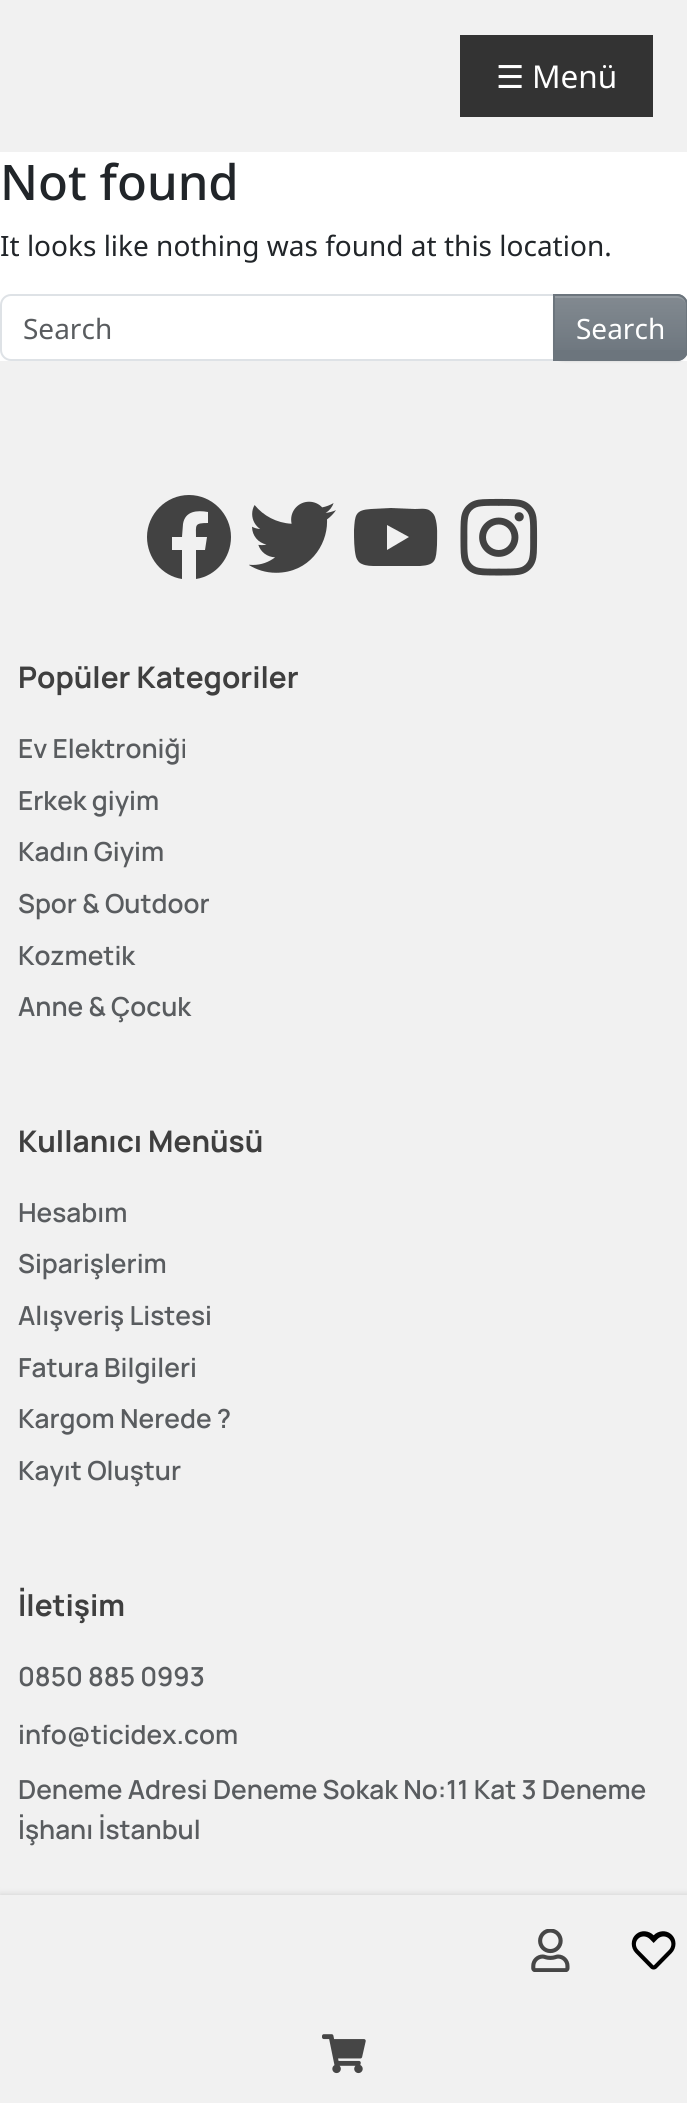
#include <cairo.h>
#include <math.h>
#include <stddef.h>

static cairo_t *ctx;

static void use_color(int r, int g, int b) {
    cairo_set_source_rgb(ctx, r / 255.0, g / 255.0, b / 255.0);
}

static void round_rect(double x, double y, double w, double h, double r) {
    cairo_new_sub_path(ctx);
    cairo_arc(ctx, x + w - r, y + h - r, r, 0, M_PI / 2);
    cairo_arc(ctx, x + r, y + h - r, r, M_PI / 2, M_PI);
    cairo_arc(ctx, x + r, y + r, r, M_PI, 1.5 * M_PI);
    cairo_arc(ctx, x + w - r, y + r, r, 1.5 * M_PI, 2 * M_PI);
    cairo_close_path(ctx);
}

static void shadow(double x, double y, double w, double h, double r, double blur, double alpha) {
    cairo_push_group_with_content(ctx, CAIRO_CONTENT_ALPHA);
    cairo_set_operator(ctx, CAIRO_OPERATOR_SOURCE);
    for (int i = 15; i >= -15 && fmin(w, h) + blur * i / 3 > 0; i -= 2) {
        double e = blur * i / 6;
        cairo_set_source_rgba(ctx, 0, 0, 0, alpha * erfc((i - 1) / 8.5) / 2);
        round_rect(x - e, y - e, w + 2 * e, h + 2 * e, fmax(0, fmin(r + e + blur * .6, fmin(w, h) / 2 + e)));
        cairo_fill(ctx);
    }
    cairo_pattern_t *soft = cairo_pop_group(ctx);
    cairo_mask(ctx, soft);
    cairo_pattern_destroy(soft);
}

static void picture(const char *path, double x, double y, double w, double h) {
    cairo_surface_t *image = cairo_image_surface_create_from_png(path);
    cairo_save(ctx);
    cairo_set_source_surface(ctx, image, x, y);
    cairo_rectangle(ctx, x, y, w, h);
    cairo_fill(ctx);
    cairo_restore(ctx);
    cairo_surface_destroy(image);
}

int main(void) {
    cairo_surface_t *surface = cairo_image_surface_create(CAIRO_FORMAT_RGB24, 687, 2103);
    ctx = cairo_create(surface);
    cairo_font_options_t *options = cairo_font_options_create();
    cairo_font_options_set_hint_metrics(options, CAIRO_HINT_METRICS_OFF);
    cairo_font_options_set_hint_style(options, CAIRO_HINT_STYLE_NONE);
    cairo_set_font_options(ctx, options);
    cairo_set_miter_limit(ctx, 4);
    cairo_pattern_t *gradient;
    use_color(255, 255, 255);
    cairo_paint(ctx);
    use_color(241, 241, 241);
    cairo_rectangle(ctx, 0, 0, 687, 152);
    cairo_fill(ctx);
    use_color(51, 51, 51);
    cairo_rectangle(ctx, 460, 35, 193, 82);
    cairo_fill(ctx);
    cairo_select_font_face(ctx, "DejaVu Sans", CAIRO_FONT_SLANT_NORMAL, CAIRO_FONT_WEIGHT_NORMAL);
    cairo_set_font_size(ctx, 31.5);
    use_color(255, 255, 255);
    cairo_move_to(ctx, 496, 88);
    cairo_show_text(ctx, "☰");
    cairo_select_font_face(ctx, "Noto Sans", CAIRO_FONT_SLANT_NORMAL, CAIRO_FONT_WEIGHT_NORMAL);
    cairo_move_to(ctx, 532, 88);
    cairo_show_text(ctx, "Menü");
    use_color(241, 241, 241);
    cairo_rectangle(ctx, 0, 361, 687, 1534);
    cairo_fill(ctx);
    use_color(172, 172, 172);
    shadow(0, 1895, 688, 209, 0, 3.5, 0.5);
    use_color(241, 241, 241);
    cairo_rectangle(ctx, 0, 1895, 687, 208);
    cairo_fill(ctx);
    picture("img1.png", 531, 1929, 39, 43);
    picture("img2.png", 631, 1931, 45, 39);
    picture("img3.png", 322, 2034, 44, 40);
    cairo_select_font_face(ctx, "Noto Sans Medium", CAIRO_FONT_SLANT_NORMAL, CAIRO_FONT_WEIGHT_NORMAL);
    cairo_set_font_size(ctx, 49);
    use_color(33, 37, 41);
    cairo_move_to(ctx, 0, 200);
    cairo_show_text(ctx, "Not found");
    cairo_select_font_face(ctx, "Noto Sans", CAIRO_FONT_SLANT_NORMAL, CAIRO_FONT_WEIGHT_NORMAL);
    cairo_set_font_size(ctx, 28);
    cairo_move_to(ctx, 0, 256);
    cairo_show_text(ctx, "It looks like nothing was found at this location.");
    cairo_new_path(ctx);
    cairo_move_to(ctx, 11, 295);
    cairo_line_to(ctx, 554, 295);
    cairo_line_to(ctx, 554, 360);
    cairo_line_to(ctx, 11, 360);
    cairo_curve_to(ctx, 5.5, 360, 1, 355.5, 1, 350);
    cairo_line_to(ctx, 1, 305);
    cairo_curve_to(ctx, 1, 299.5, 5.5, 295, 11, 295);
    cairo_close_path(ctx);
    use_color(222, 226, 230);
    cairo_stroke(ctx);
    use_color(89, 92, 95);
    cairo_move_to(ctx, 23, 339);
    cairo_show_text(ctx, "Search");
    use_color(0, 0, 0);
    shadow(553, 296, 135, 66, 11, 1, 0.07);
    use_color(108, 117, 125);
    cairo_new_path(ctx);
    cairo_move_to(ctx, 553, 294);
    cairo_line_to(ctx, 677, 294);
    cairo_curve_to(ctx, 683, 294, 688, 299, 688, 305);
    cairo_line_to(ctx, 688, 350);
    cairo_curve_to(ctx, 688, 356, 683, 361, 677, 361);
    cairo_line_to(ctx, 553, 361);
    cairo_close_path(ctx);
    cairo_fill(ctx);
    cairo_save(ctx);
    cairo_new_path(ctx);
    cairo_move_to(ctx, 553, 294);
    cairo_line_to(ctx, 677, 294);
    cairo_curve_to(ctx, 683, 294, 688, 299, 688, 305);
    cairo_line_to(ctx, 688, 350);
    cairo_curve_to(ctx, 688, 356, 683, 361, 677, 361);
    cairo_line_to(ctx, 553, 361);
    cairo_close_path(ctx);
    cairo_clip(ctx);
    gradient = cairo_pattern_create_linear(620, 296, 620, 359);
    cairo_pattern_add_color_stop_rgba(gradient, 0, 1, 1, 1, 0.15);
    cairo_pattern_add_color_stop_rgba(gradient, 1, 1, 1, 1, 0);
    cairo_set_source(ctx, gradient);
    cairo_pattern_destroy(gradient);
    cairo_rectangle(ctx, 555, 296, 132, 54);
    cairo_fill(ctx);
    cairo_restore(ctx);
    use_color(148, 155, 161);
    cairo_new_path(ctx);
    cairo_move_to(ctx, 555, 298);
    cairo_line_to(ctx, 677, 298);
    cairo_curve_to(ctx, 682, 298, 686, 301, 686, 306);
    cairo_line_to(ctx, 686, 305);
    cairo_curve_to(ctx, 686, 300, 682, 296, 677, 296);
    cairo_line_to(ctx, 555, 296);
    cairo_close_path(ctx);
    cairo_fill(ctx);
    cairo_new_path(ctx);
    cairo_move_to(ctx, 554, 295);
    cairo_line_to(ctx, 677, 295);
    cairo_curve_to(ctx, 682.5, 295, 687, 299.5, 687, 305);
    cairo_line_to(ctx, 687, 350);
    cairo_curve_to(ctx, 687, 355.5, 682.5, 360, 677, 360);
    cairo_line_to(ctx, 554, 360);
    cairo_close_path(ctx);
    use_color(108, 117, 125);
    cairo_stroke(ctx);
    use_color(255, 255, 255);
    cairo_move_to(ctx, 576, 339);
    cairo_show_text(ctx, "Search");
    use_color(66, 66, 66);
    cairo_new_path(ctx);
    cairo_move_to(ctx, 231, 537);
    cairo_curve_to(ctx, 231, 514, 212, 495, 189, 495);
    cairo_curve_to(ctx, 166, 495, 147, 514, 147, 537);
    cairo_curve_to(ctx, 147, 558, 162, 576, 182, 579);
    cairo_line_to(ctx, 182, 550);
    cairo_line_to(ctx, 172, 550);
    cairo_line_to(ctx, 172, 537);
    cairo_line_to(ctx, 182, 537);
    cairo_line_to(ctx, 183, 524);
    cairo_curve_to(ctx, 185, 511, 197, 510, 208, 512);
    cairo_line_to(ctx, 208, 523);
    cairo_curve_to(ctx, 194, 523, 196, 525, 196, 537);
    cairo_line_to(ctx, 207, 537);
    cairo_line_to(ctx, 205, 550);
    cairo_line_to(ctx, 196, 550);
    cairo_line_to(ctx, 196, 579);
    cairo_curve_to(ctx, 216, 576, 231, 558, 231, 537);
    cairo_close_path(ctx);
    cairo_fill(ctx);
    picture("img4.png", 249, 501, 87, 72);
    cairo_new_path(ctx);
    cairo_move_to(ctx, 435, 517);
    cairo_curve_to(ctx, 434, 514, 432, 512, 429, 510);
    cairo_curve_to(ctx, 425, 508, 419, 509, 415, 509);
    cairo_line_to(ctx, 391, 508);
    cairo_line_to(ctx, 371, 509);
    cairo_curve_to(ctx, 355, 510, 355, 515, 354, 530);
    cairo_curve_to(ctx, 354, 539, 354, 549, 356, 557);
    cairo_curve_to(ctx, 357, 560, 359, 563, 362, 564);
    cairo_curve_to(ctx, 366, 566, 372, 566, 376, 566);
    cairo_line_to(ctx, 397, 566);
    cairo_line_to(ctx, 420, 566);
    cairo_curve_to(ctx, 436, 565, 436, 560, 437, 545);
    cairo_curve_to(ctx, 437, 536, 438, 526, 435, 517);
    cairo_close_path(ctx);
    cairo_move_to(ctx, 387, 550);
    cairo_line_to(ctx, 387, 525);
    cairo_line_to(ctx, 409, 537);
    cairo_close_path(ctx);
    cairo_fill(ctx);
    picture("img5.png", 460, 498, 78, 78);
    cairo_select_font_face(ctx, "Manrope", CAIRO_FONT_SLANT_NORMAL, CAIRO_FONT_WEIGHT_BOLD);
    cairo_set_font_size(ctx, 29.75);
    use_color(63, 63, 63);
    cairo_move_to(ctx, 18, 688);
    cairo_show_text(ctx, "Popüler Kategoriler");
    cairo_select_font_face(ctx, "Manrope SemiBold", CAIRO_FONT_SLANT_NORMAL, CAIRO_FONT_WEIGHT_NORMAL);
    cairo_set_font_size(ctx, 26.25);
    use_color(89, 92, 95);
    cairo_move_to(ctx, 18, 758);
    cairo_show_text(ctx, "Ev Elektroniği");
    cairo_move_to(ctx, 18, 810);
    cairo_show_text(ctx, "Erkek giyim");
    cairo_move_to(ctx, 18, 861);
    cairo_show_text(ctx, "Kadın Giyim");
    cairo_move_to(ctx, 18, 913);
    cairo_show_text(ctx, "Spor & Outdoor");
    cairo_move_to(ctx, 18, 965);
    cairo_show_text(ctx, "Kozmetik");
    cairo_move_to(ctx, 18, 1016);
    cairo_show_text(ctx, "Anne & Çocuk");
    cairo_select_font_face(ctx, "Manrope", CAIRO_FONT_SLANT_NORMAL, CAIRO_FONT_WEIGHT_BOLD);
    cairo_set_font_size(ctx, 29.75);
    use_color(63, 63, 63);
    cairo_move_to(ctx, 18, 1152);
    cairo_show_text(ctx, "Kullanıcı Menüsü");
    cairo_select_font_face(ctx, "Manrope SemiBold", CAIRO_FONT_SLANT_NORMAL, CAIRO_FONT_WEIGHT_NORMAL);
    cairo_set_font_size(ctx, 26.25);
    use_color(89, 92, 95);
    cairo_move_to(ctx, 18, 1222);
    cairo_show_text(ctx, "Hesabım");
    cairo_move_to(ctx, 18, 1273);
    cairo_show_text(ctx, "Siparişlerim");
    cairo_move_to(ctx, 18, 1325);
    cairo_show_text(ctx, "Alışveriş Listesi");
    cairo_move_to(ctx, 18, 1377);
    cairo_show_text(ctx, "Fatura Bilgileri");
    cairo_move_to(ctx, 18, 1428);
    cairo_show_text(ctx, "Kargom Nerede ?");
    cairo_move_to(ctx, 18, 1480);
    cairo_show_text(ctx, "Kayıt Oluştur");
    cairo_select_font_face(ctx, "Manrope", CAIRO_FONT_SLANT_NORMAL, CAIRO_FONT_WEIGHT_BOLD);
    cairo_set_font_size(ctx, 29.75);
    use_color(63, 63, 63);
    cairo_move_to(ctx, 18, 1616);
    cairo_show_text(ctx, "İletişim");
    cairo_select_font_face(ctx, "Manrope SemiBold", CAIRO_FONT_SLANT_NORMAL, CAIRO_FONT_WEIGHT_NORMAL);
    cairo_set_font_size(ctx, 26.25);
    use_color(89, 92, 95);
    cairo_move_to(ctx, 18, 1686);
    cairo_show_text(ctx, "0850 885 0993");
    cairo_move_to(ctx, 18, 1744);
    cairo_show_text(ctx, "info@ticidex.com");
    cairo_move_to(ctx, 18, 1799);
    cairo_show_text(ctx, "Deneme Adresi Deneme Sokak No:11 Kat 3 Deneme");
    cairo_move_to(ctx, 18, 1839);
    cairo_show_text(ctx, "İşhanı İstanbul");
    cairo_surface_write_to_png(surface, "result.png");
    cairo_font_options_destroy(options);
    cairo_destroy(ctx);
    cairo_surface_destroy(surface);
    return 0;
}
